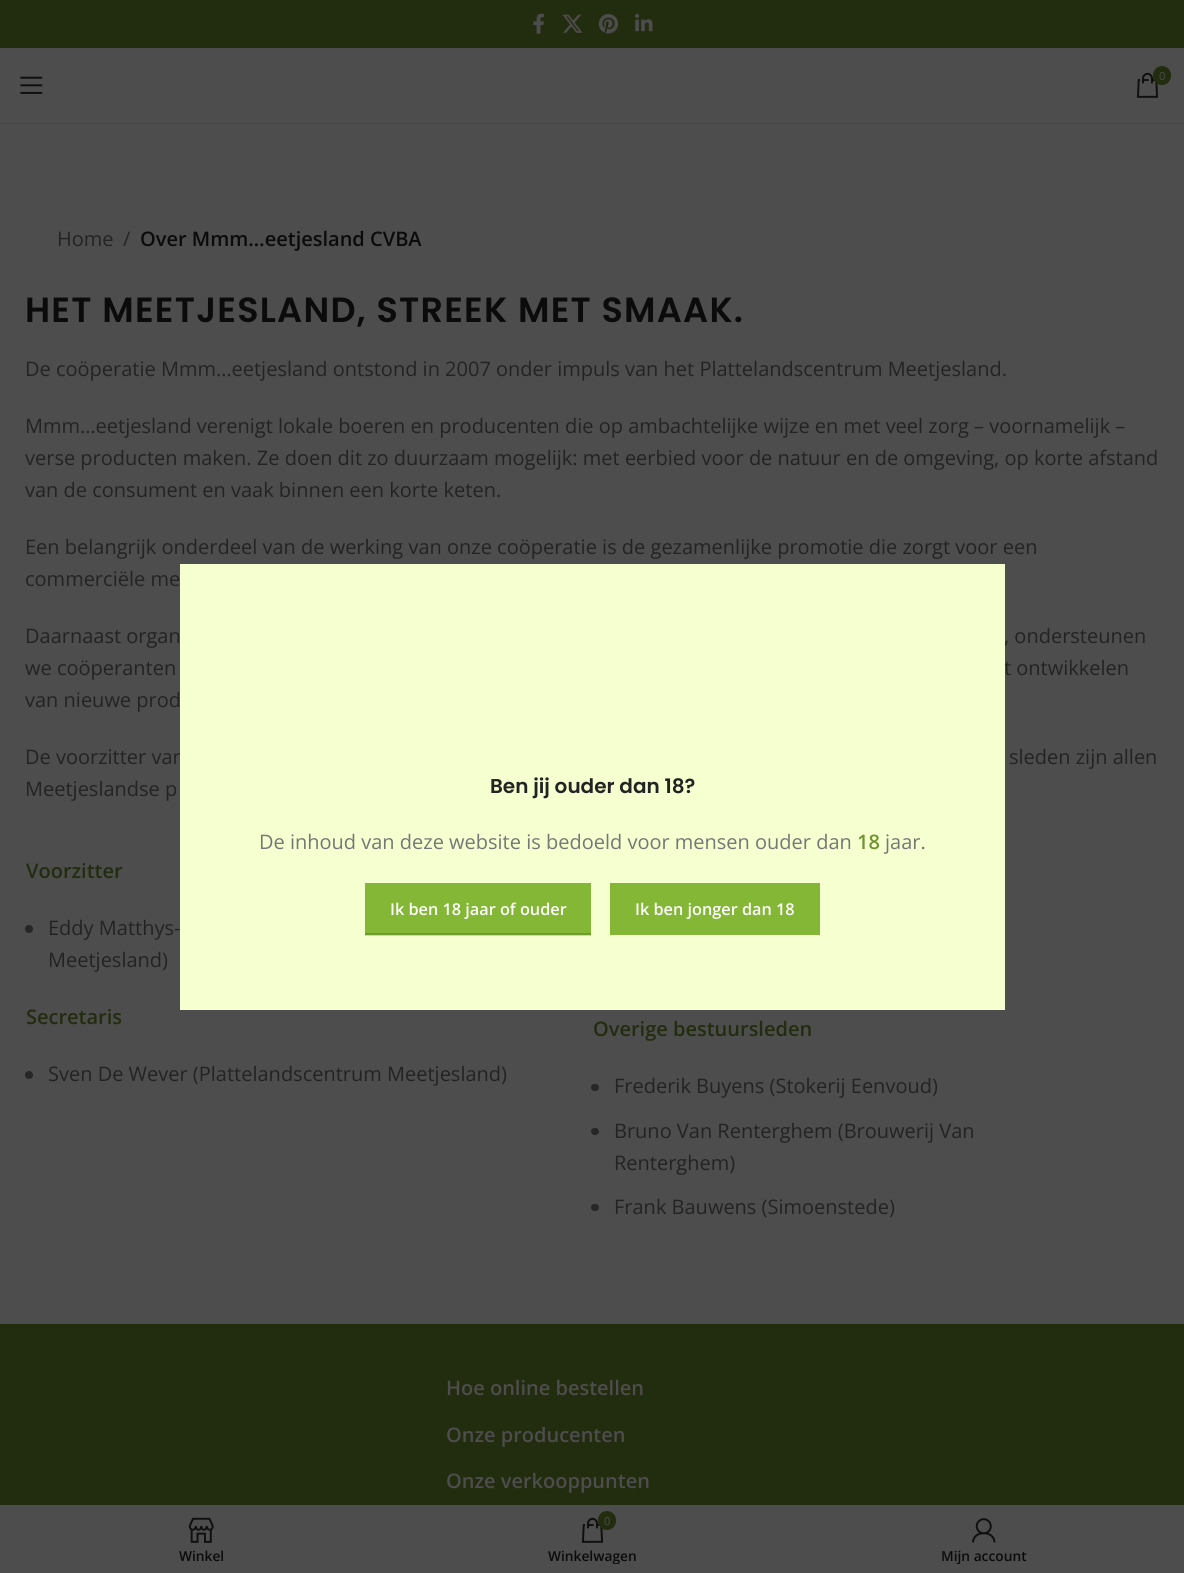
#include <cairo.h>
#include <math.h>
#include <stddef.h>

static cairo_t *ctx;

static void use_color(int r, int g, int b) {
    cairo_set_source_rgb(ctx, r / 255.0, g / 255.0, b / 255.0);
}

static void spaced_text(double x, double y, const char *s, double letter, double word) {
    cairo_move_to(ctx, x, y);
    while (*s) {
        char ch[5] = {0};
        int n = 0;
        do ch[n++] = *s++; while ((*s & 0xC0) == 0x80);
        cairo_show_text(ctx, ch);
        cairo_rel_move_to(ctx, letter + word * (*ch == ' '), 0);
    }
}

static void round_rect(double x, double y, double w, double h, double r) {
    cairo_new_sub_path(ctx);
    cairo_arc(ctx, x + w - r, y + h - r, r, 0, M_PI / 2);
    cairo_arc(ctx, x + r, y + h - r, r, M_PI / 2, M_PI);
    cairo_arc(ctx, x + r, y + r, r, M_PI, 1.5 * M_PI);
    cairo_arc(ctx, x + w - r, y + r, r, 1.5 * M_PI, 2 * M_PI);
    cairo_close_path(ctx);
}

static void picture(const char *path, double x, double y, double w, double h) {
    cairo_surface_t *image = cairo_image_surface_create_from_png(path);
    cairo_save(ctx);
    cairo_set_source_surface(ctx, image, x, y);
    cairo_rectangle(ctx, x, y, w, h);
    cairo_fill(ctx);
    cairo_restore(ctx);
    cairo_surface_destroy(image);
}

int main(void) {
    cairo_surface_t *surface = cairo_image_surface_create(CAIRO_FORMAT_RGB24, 1184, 1573);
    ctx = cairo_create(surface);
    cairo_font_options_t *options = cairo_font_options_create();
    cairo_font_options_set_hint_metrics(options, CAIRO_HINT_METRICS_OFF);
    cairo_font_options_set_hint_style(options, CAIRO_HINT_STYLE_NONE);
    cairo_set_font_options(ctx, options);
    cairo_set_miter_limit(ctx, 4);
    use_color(77, 77, 77);
    cairo_paint(ctx);
    use_color(34, 44, 14);
    cairo_rectangle(ctx, 0, 0, 1184, 48);
    cairo_fill(ctx);
    picture("img1.png", 533, 13, 12, 21);
    picture("img2.png", 562, 14, 21, 19);
    picture("img3.png", 598, 14, 21, 20);
    picture("img4.png", 635, 13, 18, 19);
    use_color(70, 70, 70);
    cairo_rectangle(ctx, 0, 123, 1184, 1);
    cairo_fill(ctx);
    picture("img5.png", 20, 76, 23, 18);
    picture("img6.png", 1136, 72, 23, 26);
    use_color(34, 44, 14);
    round_rect(1153, 66, 18, 19, 9);
    cairo_fill(ctx);
    cairo_select_font_face(ctx, "Open Sans", CAIRO_FONT_SLANT_NORMAL, CAIRO_FONT_WEIGHT_NORMAL);
    cairo_set_font_size(ctx, 11);
    use_color(77, 77, 77);
    cairo_move_to(ctx, 1159, 80);
    cairo_show_text(ctx, "0");
    cairo_set_font_size(ctx, 20);
    use_color(35, 35, 35);
    cairo_move_to(ctx, 57, 246);
    cairo_show_text(ctx, "Home");
    cairo_move_to(ctx, 123, 246);
    cairo_show_text(ctx, "/");
    cairo_select_font_face(ctx, "Open Sans SemiBold", CAIRO_FONT_SLANT_NORMAL, CAIRO_FONT_WEIGHT_NORMAL);
    use_color(11, 11, 11);
    cairo_move_to(ctx, 140, 246);
    cairo_show_text(ctx, "Over Mmm…eetjesland CVBA");
    cairo_select_font_face(ctx, "Poppins SemiBold", CAIRO_FONT_SLANT_NORMAL, CAIRO_FONT_WEIGHT_NORMAL);
    cairo_set_font_size(ctx, 35);
    spaced_text(25, 322, "HET MEETJESLAND, STREEK MET SMAAK.", 1.25, 0);
    cairo_select_font_face(ctx, "Open Sans", CAIRO_FONT_SLANT_NORMAL, CAIRO_FONT_WEIGHT_NORMAL);
    cairo_set_font_size(ctx, 20);
    use_color(35, 35, 35);
    cairo_move_to(ctx, 25, 376);
    cairo_show_text(ctx, "De coöperatie Mmm…eetjesland ontstond in 2007 onder impuls van het Plattelandscentrum Meetjesland.");
    cairo_move_to(ctx, 25, 433);
    cairo_show_text(ctx, "Mmm…eetjesland verenigt lokale boeren en producenten die op ambachtelijke wijze en met veel zorg – voornamelijk –");
    cairo_move_to(ctx, 25, 465);
    cairo_show_text(ctx, "verse producten maken. Ze doen dit zo duurzaam mogelijk: met eerbied voor de natuur en de omgeving, op korte afstand");
    cairo_move_to(ctx, 25, 497);
    cairo_show_text(ctx, "van de consument en vaak binnen een korte keten.");
    cairo_move_to(ctx, 25, 554);
    cairo_show_text(ctx, "Een belangrijk onderdeel van de werking van onze coöperatie is de gezamenlijke promotie die zorgt voor een");
    cairo_move_to(ctx, 25, 586);
    cairo_show_text(ctx, "commerciële me");
    cairo_move_to(ctx, 25, 643);
    cairo_show_text(ctx, "Daarnaast organ");
    cairo_move_to(ctx, 1004, 643);
    cairo_show_text(ctx, ", ondersteunen");
    cairo_move_to(ctx, 25, 675);
    cairo_show_text(ctx, "we coöperanten");
    cairo_move_to(ctx, 1004, 675);
    cairo_show_text(ctx, "t ontwikkelen");
    cairo_move_to(ctx, 25, 707);
    cairo_show_text(ctx, "van nieuwe prod");
    cairo_move_to(ctx, 25, 764);
    cairo_show_text(ctx, "De voorzitter van");
    cairo_move_to(ctx, 1009, 764);
    cairo_show_text(ctx, "sleden zijn allen");
    cairo_move_to(ctx, 25, 796);
    cairo_show_text(ctx, "Meetjeslandse p");
    cairo_select_font_face(ctx, "Open Sans SemiBold", CAIRO_FONT_SLANT_NORMAL, CAIRO_FONT_WEIGHT_NORMAL);
    use_color(34, 44, 14);
    cairo_move_to(ctx, 26, 878);
    cairo_show_text(ctx, "Voorzitter");
    use_color(38, 38, 38);
    cairo_new_path(ctx);
    cairo_arc(ctx, 29, 929, 4, 0, 2 * M_PI);
    cairo_fill(ctx);
    cairo_select_font_face(ctx, "Open Sans", CAIRO_FONT_SLANT_NORMAL, CAIRO_FONT_WEIGHT_NORMAL);
    use_color(35, 35, 35);
    cairo_move_to(ctx, 48, 935);
    cairo_show_text(ctx, "Eddy Matthys-");
    cairo_move_to(ctx, 48, 967);
    cairo_show_text(ctx, "Meetjesland)");
    cairo_select_font_face(ctx, "Open Sans SemiBold", CAIRO_FONT_SLANT_NORMAL, CAIRO_FONT_WEIGHT_NORMAL);
    use_color(34, 44, 14);
    cairo_move_to(ctx, 26, 1024);
    cairo_show_text(ctx, "Secretaris");
    use_color(38, 38, 38);
    cairo_new_path(ctx);
    cairo_arc(ctx, 29, 1075, 4, 0, 2 * M_PI);
    cairo_fill(ctx);
    cairo_select_font_face(ctx, "Open Sans", CAIRO_FONT_SLANT_NORMAL, CAIRO_FONT_WEIGHT_NORMAL);
    use_color(35, 35, 35);
    cairo_move_to(ctx, 48, 1081);
    cairo_show_text(ctx, "Sven De Wever (Plattelandscentrum Meetjesland)");
    cairo_select_font_face(ctx, "Open Sans SemiBold", CAIRO_FONT_SLANT_NORMAL, CAIRO_FONT_WEIGHT_NORMAL);
    use_color(34, 44, 14);
    cairo_move_to(ctx, 593, 1036);
    cairo_show_text(ctx, "Overige bestuursleden");
    use_color(38, 38, 38);
    round_rect(591, 1084, 8, 7, 3.5);
    cairo_fill(ctx);
    cairo_select_font_face(ctx, "Open Sans", CAIRO_FONT_SLANT_NORMAL, CAIRO_FONT_WEIGHT_NORMAL);
    use_color(35, 35, 35);
    cairo_move_to(ctx, 614, 1093);
    cairo_show_text(ctx, "Frederik Buyens (Stokerij Eenvoud)");
    use_color(38, 38, 38);
    round_rect(591, 1128, 8, 7, 3.5);
    cairo_fill(ctx);
    use_color(35, 35, 35);
    cairo_move_to(ctx, 614, 1138);
    cairo_show_text(ctx, "Bruno Van Renterghem (Brouwerij Van");
    cairo_move_to(ctx, 614, 1170);
    cairo_show_text(ctx, "Renterghem)");
    use_color(38, 38, 38);
    round_rect(591, 1204, 8, 7, 3.5);
    cairo_fill(ctx);
    use_color(35, 35, 35);
    cairo_move_to(ctx, 614, 1214);
    cairo_show_text(ctx, "Frank Bauwens (Simoenstede)");
    use_color(34, 44, 14);
    cairo_rectangle(ctx, 0, 1324, 1184, 181);
    cairo_fill(ctx);
    cairo_select_font_face(ctx, "Open Sans SemiBold", CAIRO_FONT_SLANT_NORMAL, CAIRO_FONT_WEIGHT_NORMAL);
    use_color(77, 77, 77);
    cairo_move_to(ctx, 446, 1395);
    cairo_show_text(ctx, "Hoe online bestellen");
    cairo_move_to(ctx, 446, 1442);
    cairo_show_text(ctx, "Onze producenten");
    cairo_move_to(ctx, 446, 1488);
    cairo_show_text(ctx, "Onze verkooppunten");
    use_color(245, 255, 208);
    cairo_rectangle(ctx, 180, 564, 825, 446);
    cairo_fill(ctx);
    cairo_select_font_face(ctx, "Poppins SemiBold", CAIRO_FONT_SLANT_NORMAL, CAIRO_FONT_WEIGHT_NORMAL);
    use_color(35, 35, 35);
    cairo_move_to(ctx, 490, 793);
    cairo_show_text(ctx, "Ben jij ouder dan 18?");
    cairo_select_font_face(ctx, "Open Sans", CAIRO_FONT_SLANT_NORMAL, CAIRO_FONT_WEIGHT_NORMAL);
    use_color(118, 118, 118);
    cairo_move_to(ctx, 259, 849);
    cairo_show_text(ctx, "De inhoud van deze website is bedoeld voor mensen ouder dan");
    cairo_select_font_face(ctx, "Open Sans SemiBold", CAIRO_FONT_SLANT_NORMAL, CAIRO_FONT_WEIGHT_NORMAL);
    use_color(113, 148, 48);
    cairo_move_to(ctx, 857, 849);
    cairo_show_text(ctx, "18");
    cairo_select_font_face(ctx, "Open Sans", CAIRO_FONT_SLANT_NORMAL, CAIRO_FONT_WEIGHT_NORMAL);
    use_color(118, 118, 118);
    cairo_move_to(ctx, 885, 849);
    cairo_show_text(ctx, "jaar.");
    use_color(131, 183, 53);
    cairo_rectangle(ctx, 365, 883, 226, 52);
    cairo_fill(ctx);
    cairo_set_source_rgba(ctx, 0, 0, 0, 0.15);
    cairo_rectangle(ctx, 365, 933, 226, 3);
    cairo_fill(ctx);
    cairo_select_font_face(ctx, "Open Sans SemiBold", CAIRO_FONT_SLANT_NORMAL, CAIRO_FONT_WEIGHT_NORMAL);
    cairo_set_font_size(ctx, 16.25);
    use_color(255, 255, 255);
    cairo_move_to(ctx, 390, 915);
    cairo_show_text(ctx, "Ik ben 18 jaar of ouder");
    use_color(131, 183, 53);
    cairo_rectangle(ctx, 610, 883, 210, 52);
    cairo_fill(ctx);
    use_color(255, 255, 255);
    cairo_move_to(ctx, 635, 915);
    cairo_show_text(ctx, "Ik ben jonger dan 18");
    picture("img7.png", 188, 1517, 26, 26);
    cairo_set_font_size(ctx, 13.75);
    use_color(11, 11, 11);
    cairo_move_to(ctx, 179, 1561);
    cairo_show_text(ctx, "Winkel");
    picture("img6.png", 581, 1517, 23, 26);
    use_color(34, 44, 14);
    round_rect(598, 1511, 18, 19, 9);
    cairo_fill(ctx);
    cairo_select_font_face(ctx, "Open Sans", CAIRO_FONT_SLANT_NORMAL, CAIRO_FONT_WEIGHT_NORMAL);
    cairo_set_font_size(ctx, 11);
    use_color(77, 77, 77);
    cairo_move_to(ctx, 604, 1525);
    cairo_show_text(ctx, "0");
    cairo_save(ctx);
    cairo_rectangle(ctx, 410, 1548, 365, 16);
    cairo_clip(ctx);
    cairo_select_font_face(ctx, "Open Sans SemiBold", CAIRO_FONT_SLANT_NORMAL, CAIRO_FONT_WEIGHT_NORMAL);
    cairo_set_font_size(ctx, 13.75);
    use_color(11, 11, 11);
    cairo_move_to(ctx, 548, 1561);
    cairo_show_text(ctx, "Winkelwagen");
    cairo_restore(ctx);
    picture("img8.png", 972, 1518, 24, 25);
    cairo_save(ctx);
    cairo_rectangle(ctx, 800, 1548, 366, 16);
    cairo_clip(ctx);
    cairo_select_font_face(ctx, "Open Sans SemiBold", CAIRO_FONT_SLANT_NORMAL, CAIRO_FONT_WEIGHT_NORMAL);
    cairo_set_font_size(ctx, 13.75);
    use_color(11, 11, 11);
    cairo_move_to(ctx, 941, 1561);
    cairo_show_text(ctx, "Mijn account");
    cairo_restore(ctx);
    cairo_surface_write_to_png(surface, "result.png");
    cairo_font_options_destroy(options);
    cairo_destroy(ctx);
    cairo_surface_destroy(surface);
    return 0;
}
